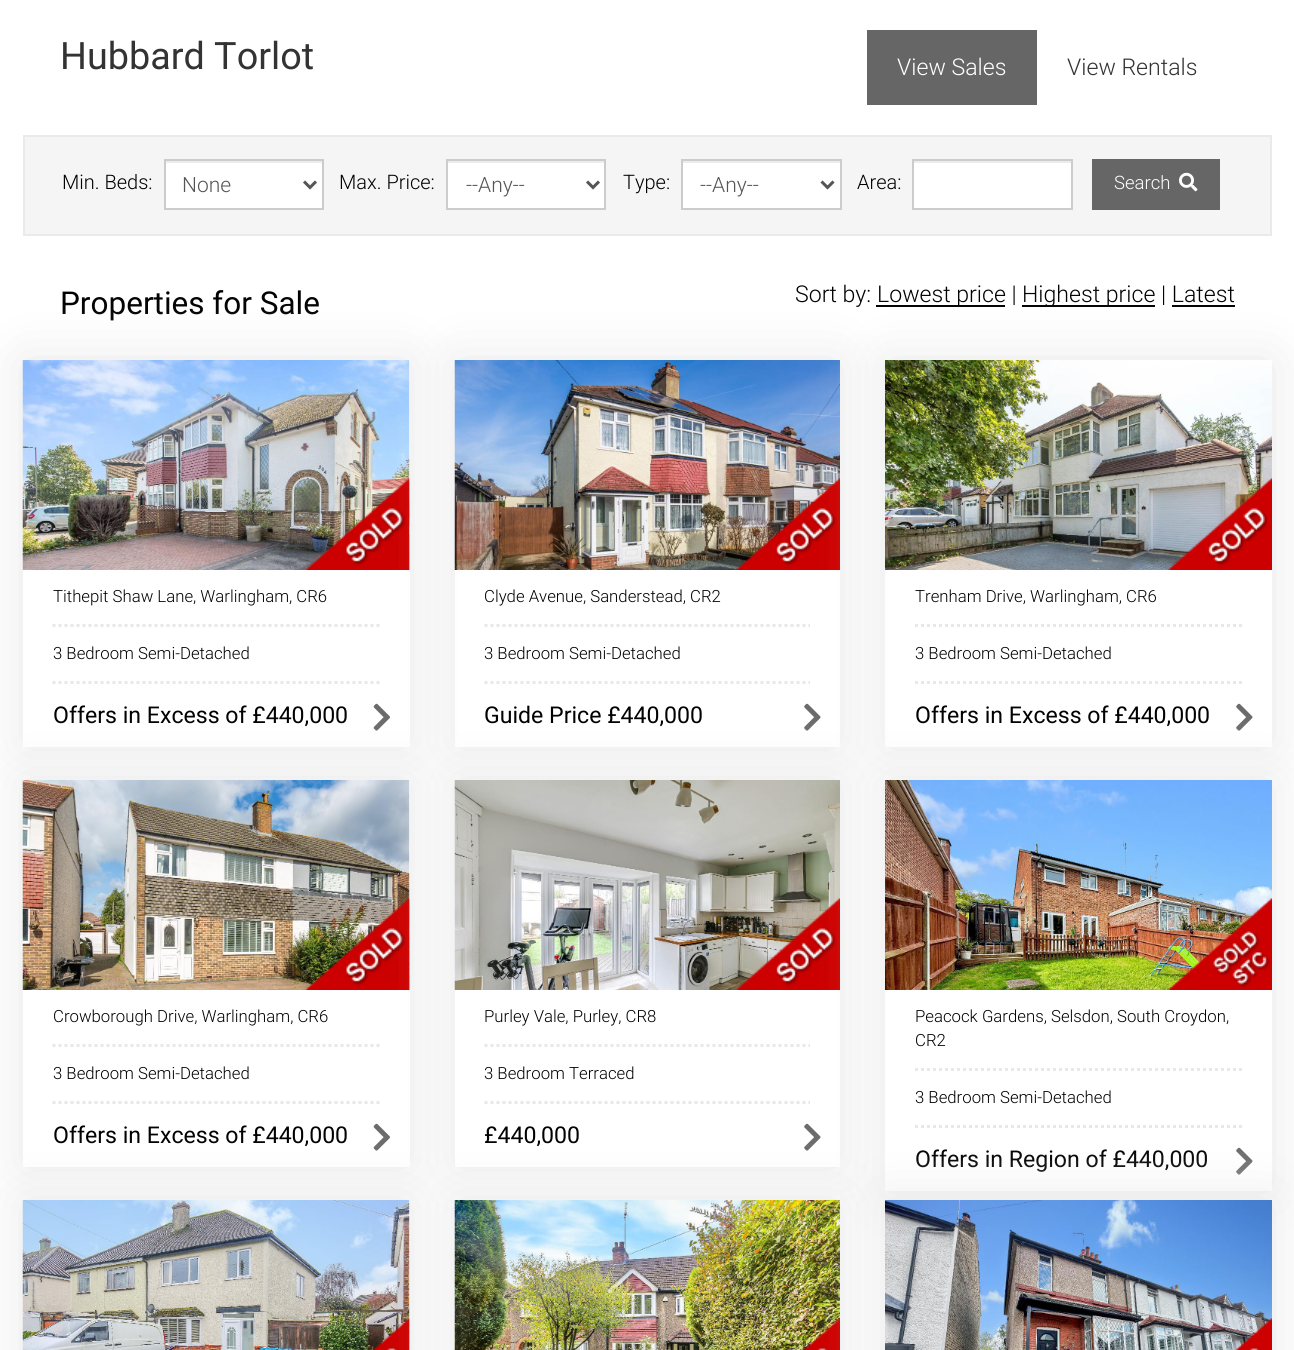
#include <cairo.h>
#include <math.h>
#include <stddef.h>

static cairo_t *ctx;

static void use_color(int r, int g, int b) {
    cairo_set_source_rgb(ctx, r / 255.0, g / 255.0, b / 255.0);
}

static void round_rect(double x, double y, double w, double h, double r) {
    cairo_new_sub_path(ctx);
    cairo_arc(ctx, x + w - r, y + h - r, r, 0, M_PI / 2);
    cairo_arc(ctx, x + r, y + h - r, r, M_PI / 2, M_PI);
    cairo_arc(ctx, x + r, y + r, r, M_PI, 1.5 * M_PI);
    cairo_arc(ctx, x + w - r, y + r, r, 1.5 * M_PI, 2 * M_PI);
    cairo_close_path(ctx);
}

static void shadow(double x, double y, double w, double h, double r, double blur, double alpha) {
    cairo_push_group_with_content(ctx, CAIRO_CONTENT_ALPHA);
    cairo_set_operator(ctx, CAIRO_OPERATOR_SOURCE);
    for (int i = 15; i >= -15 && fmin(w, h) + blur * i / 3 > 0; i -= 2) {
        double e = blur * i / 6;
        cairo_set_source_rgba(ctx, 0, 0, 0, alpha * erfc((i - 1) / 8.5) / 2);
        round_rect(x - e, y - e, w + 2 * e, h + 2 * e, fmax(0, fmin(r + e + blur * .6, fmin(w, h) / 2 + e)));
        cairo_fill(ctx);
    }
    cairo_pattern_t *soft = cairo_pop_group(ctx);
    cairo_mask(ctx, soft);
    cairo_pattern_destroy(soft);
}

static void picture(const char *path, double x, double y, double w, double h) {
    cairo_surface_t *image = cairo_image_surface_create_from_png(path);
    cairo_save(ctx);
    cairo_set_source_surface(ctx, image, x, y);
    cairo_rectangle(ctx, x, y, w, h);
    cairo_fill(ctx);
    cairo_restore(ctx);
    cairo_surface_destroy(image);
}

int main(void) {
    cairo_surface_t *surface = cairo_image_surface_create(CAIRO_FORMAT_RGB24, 1294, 1350);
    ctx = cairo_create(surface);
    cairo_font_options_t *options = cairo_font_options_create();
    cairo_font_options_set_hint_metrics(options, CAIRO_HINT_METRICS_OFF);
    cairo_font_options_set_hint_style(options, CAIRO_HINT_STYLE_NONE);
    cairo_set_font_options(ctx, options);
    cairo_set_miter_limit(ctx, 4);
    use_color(255, 255, 255);
    cairo_paint(ctx);
    cairo_select_font_face(ctx, "Roboto", CAIRO_FONT_SLANT_NORMAL, CAIRO_FONT_WEIGHT_NORMAL);
    cairo_set_font_size(ctx, 37.75);
    use_color(51, 51, 51);
    cairo_move_to(ctx, 60, 69);
    cairo_show_text(ctx, "Hubbard Torlot");
    use_color(102, 102, 102);
    cairo_rectangle(ctx, 867, 30, 170, 75);
    cairo_fill(ctx);
    cairo_select_font_face(ctx, "Roboto Light", CAIRO_FONT_SLANT_NORMAL, CAIRO_FONT_WEIGHT_NORMAL);
    cairo_set_font_size(ctx, 23.1);
    use_color(255, 255, 255);
    cairo_move_to(ctx, 897, 75);
    cairo_show_text(ctx, "View Sales");
    use_color(51, 51, 51);
    cairo_move_to(ctx, 1067, 75);
    cairo_show_text(ctx, "View Rentals");
    use_color(245, 245, 245);
    cairo_rectangle(ctx, 24, 136, 1247, 99);
    cairo_fill_preserve(ctx);
    use_color(234, 234, 234);
    cairo_stroke(ctx);
    cairo_set_font_size(ctx, 20);
    use_color(0, 0, 0);
    cairo_move_to(ctx, 62, 189);
    cairo_show_text(ctx, "Min. Beds:");
    use_color(255, 255, 255);
    cairo_rectangle(ctx, 166, 163, 156, 45);
    cairo_fill(ctx);
    use_color(236, 236, 236);
    cairo_rectangle(ctx, 165, 161, 158, 2);
    cairo_fill(ctx);
    cairo_rectangle(ctx, 165, 160, 158, 49);
    use_color(204, 204, 204);
    cairo_stroke(ctx);
    cairo_new_path(ctx);
    cairo_move_to(ctx, 304, 181.5);
    cairo_line_to(ctx, 310, 187.5);
    cairo_line_to(ctx, 316, 181.5);
    use_color(85, 85, 85);
    cairo_set_line_width(ctx, 3);
    cairo_stroke(ctx);
    cairo_set_font_size(ctx, 21);
    cairo_move_to(ctx, 182, 192);
    cairo_show_text(ctx, "None");
    cairo_set_font_size(ctx, 20);
    use_color(0, 0, 0);
    cairo_move_to(ctx, 339, 189);
    cairo_show_text(ctx, "Max. Price:");
    use_color(255, 255, 255);
    cairo_rectangle(ctx, 448, 163, 156, 45);
    cairo_fill(ctx);
    use_color(236, 236, 236);
    cairo_rectangle(ctx, 447, 161, 158, 2);
    cairo_fill(ctx);
    cairo_rectangle(ctx, 447, 160, 158, 49);
    use_color(204, 204, 204);
    cairo_set_line_width(ctx, 2);
    cairo_stroke(ctx);
    cairo_new_path(ctx);
    cairo_move_to(ctx, 587, 181.5);
    cairo_line_to(ctx, 593, 187.5);
    cairo_line_to(ctx, 599, 181.5);
    use_color(85, 85, 85);
    cairo_set_line_width(ctx, 3);
    cairo_stroke(ctx);
    cairo_set_font_size(ctx, 21);
    cairo_move_to(ctx, 466, 192);
    cairo_show_text(ctx, "--Any--");
    cairo_set_font_size(ctx, 20);
    use_color(0, 0, 0);
    cairo_move_to(ctx, 623, 189);
    cairo_show_text(ctx, "Type:");
    use_color(255, 255, 255);
    cairo_rectangle(ctx, 683, 163, 157, 45);
    cairo_fill(ctx);
    use_color(236, 236, 236);
    cairo_rectangle(ctx, 683, 161, 157, 2);
    cairo_fill(ctx);
    cairo_rectangle(ctx, 682, 160, 159, 49);
    use_color(204, 204, 204);
    cairo_set_line_width(ctx, 2);
    cairo_stroke(ctx);
    cairo_new_path(ctx);
    cairo_move_to(ctx, 821.5, 181.5);
    cairo_line_to(ctx, 827.5, 187.5);
    cairo_line_to(ctx, 833.5, 181.5);
    use_color(85, 85, 85);
    cairo_set_line_width(ctx, 3);
    cairo_stroke(ctx);
    cairo_set_font_size(ctx, 21);
    cairo_move_to(ctx, 700, 192);
    cairo_show_text(ctx, "--Any--");
    cairo_set_font_size(ctx, 20);
    use_color(0, 0, 0);
    cairo_move_to(ctx, 857, 189);
    cairo_show_text(ctx, "Area:");
    use_color(255, 255, 255);
    cairo_rectangle(ctx, 914, 163, 157, 45);
    cairo_fill(ctx);
    use_color(236, 236, 236);
    cairo_rectangle(ctx, 914, 161, 157, 2);
    cairo_fill(ctx);
    cairo_rectangle(ctx, 913, 160, 159, 49);
    use_color(204, 204, 204);
    cairo_set_line_width(ctx, 2);
    cairo_stroke(ctx);
    use_color(102, 102, 102);
    cairo_rectangle(ctx, 1092, 159, 128, 51);
    cairo_fill(ctx);
    cairo_set_font_size(ctx, 18.5);
    use_color(255, 255, 255);
    cairo_move_to(ctx, 1114, 189);
    cairo_show_text(ctx, "Search");
    picture("img1.png", 1179, 172, 19, 20);
    cairo_select_font_face(ctx, "Roboto", CAIRO_FONT_SLANT_NORMAL, CAIRO_FONT_WEIGHT_NORMAL);
    cairo_set_font_size(ctx, 31.5);
    use_color(0, 0, 0);
    cairo_move_to(ctx, 60, 314);
    cairo_show_text(ctx, "Properties for Sale");
    cairo_select_font_face(ctx, "Roboto Light", CAIRO_FONT_SLANT_NORMAL, CAIRO_FONT_WEIGHT_NORMAL);
    cairo_set_font_size(ctx, 23.1);
    cairo_move_to(ctx, 795, 302);
    cairo_show_text(ctx, "Sort by:");
    cairo_rectangle(ctx, 876, 305, 129, 2);
    cairo_fill(ctx);
    cairo_move_to(ctx, 877, 302);
    cairo_show_text(ctx, "Lowest price |");
    cairo_rectangle(ctx, 1022, 305, 133, 2);
    cairo_fill(ctx);
    cairo_move_to(ctx, 1022, 302);
    cairo_show_text(ctx, "Highest price | Latest");
    cairo_rectangle(ctx, 1172, 305, 63, 2);
    cairo_fill(ctx);
    use_color(232, 232, 232);
    shadow(23, 360, 387, 387, 0, 26, 1);
    use_color(255, 255, 255);
    cairo_rectangle(ctx, 23, 360, 387, 387);
    cairo_fill(ctx);
    picture("img2.png", 22, 360, 388, 210);
    picture("img3.png", 306, 478, 104, 92);
    cairo_new_path(ctx);
    cairo_move_to(ctx, 52.5, 625.5);
    cairo_line_to(ctx, 379.5, 625.5);
    use_color(232, 232, 232);
    cairo_set_line_width(ctx, 3);
    cairo_set_dash(ctx, (double[]){3, 3}, 2, 0);
    cairo_stroke(ctx);
    cairo_set_font_size(ctx, 16.75);
    use_color(0, 0, 0);
    cairo_move_to(ctx, 53, 602);
    cairo_show_text(ctx, "Tithepit Shaw Lane, Warlingham, CR6");
    cairo_new_path(ctx);
    cairo_move_to(ctx, 52.5, 682.5);
    cairo_line_to(ctx, 379.5, 682.5);
    use_color(232, 232, 232);
    cairo_stroke(ctx);
    use_color(0, 0, 0);
    cairo_move_to(ctx, 53, 659);
    cairo_show_text(ctx, "3 Bedroom Semi-Detached");
    cairo_select_font_face(ctx, "Roboto", CAIRO_FONT_SLANT_NORMAL, CAIRO_FONT_WEIGHT_NORMAL);
    cairo_set_font_size(ctx, 23.1);
    cairo_move_to(ctx, 53, 723);
    cairo_show_text(ctx, "Offers in Excess of £440,000");
    picture("img4.png", 373, 703, 17, 28);
    cairo_save(ctx);
    cairo_set_fill_rule(ctx, CAIRO_FILL_RULE_EVEN_ODD);
    cairo_new_path(ctx);
    cairo_move_to(ctx, 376, 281);
    cairo_line_to(ctx, 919, 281);
    cairo_line_to(ctx, 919, 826);
    cairo_line_to(ctx, 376, 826);
    cairo_close_path(ctx);
    cairo_move_to(ctx, 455, 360);
    cairo_line_to(ctx, 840, 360);
    cairo_line_to(ctx, 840, 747);
    cairo_line_to(ctx, 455, 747);
    cairo_close_path(ctx);
    cairo_clip(ctx);
    use_color(232, 232, 232);
    shadow(455, 360, 385, 387, 0, 26, 1);
    cairo_restore(ctx);
    picture("img5.png", 454, 360, 386, 210);
    picture("img6.png", 736, 478, 104, 92);
    cairo_new_path(ctx);
    cairo_move_to(ctx, 484.5, 625.5);
    cairo_line_to(ctx, 810, 625.5);
    use_color(232, 232, 232);
    cairo_stroke(ctx);
    cairo_select_font_face(ctx, "Roboto Light", CAIRO_FONT_SLANT_NORMAL, CAIRO_FONT_WEIGHT_NORMAL);
    cairo_set_font_size(ctx, 16.75);
    use_color(0, 0, 0);
    cairo_move_to(ctx, 484, 602);
    cairo_show_text(ctx, "Clyde Avenue, Sanderstead, CR2");
    cairo_new_path(ctx);
    cairo_move_to(ctx, 484.5, 682.5);
    cairo_line_to(ctx, 810, 682.5);
    use_color(232, 232, 232);
    cairo_stroke(ctx);
    use_color(0, 0, 0);
    cairo_move_to(ctx, 484, 659);
    cairo_show_text(ctx, "3 Bedroom Semi-Detached");
    cairo_select_font_face(ctx, "Roboto", CAIRO_FONT_SLANT_NORMAL, CAIRO_FONT_WEIGHT_NORMAL);
    cairo_set_font_size(ctx, 23.1);
    cairo_move_to(ctx, 484, 723);
    cairo_show_text(ctx, "Guide Price £440,000");
    picture("img7.png", 804, 703, 17, 28);
    cairo_save(ctx);
    cairo_set_fill_rule(ctx, CAIRO_FILL_RULE_EVEN_ODD);
    cairo_new_path(ctx);
    cairo_move_to(ctx, 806, 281);
    cairo_line_to(ctx, 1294, 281);
    cairo_line_to(ctx, 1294, 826);
    cairo_line_to(ctx, 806, 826);
    cairo_close_path(ctx);
    cairo_move_to(ctx, 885, 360);
    cairo_line_to(ctx, 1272, 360);
    cairo_line_to(ctx, 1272, 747);
    cairo_line_to(ctx, 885, 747);
    cairo_close_path(ctx);
    cairo_clip(ctx);
    use_color(232, 232, 232);
    shadow(885, 360, 387, 387, 0, 26, 1);
    cairo_restore(ctx);
    picture("img8.png", 885, 360, 387, 210);
    picture("img9.png", 1168, 478, 104, 92);
    cairo_new_path(ctx);
    cairo_move_to(ctx, 915, 625.5);
    cairo_line_to(ctx, 1242, 625.5);
    use_color(232, 232, 232);
    cairo_stroke(ctx);
    cairo_select_font_face(ctx, "Roboto Light", CAIRO_FONT_SLANT_NORMAL, CAIRO_FONT_WEIGHT_NORMAL);
    cairo_set_font_size(ctx, 16.75);
    use_color(0, 0, 0);
    cairo_move_to(ctx, 915, 602);
    cairo_show_text(ctx, "Trenham Drive, Warlingham, CR6");
    cairo_new_path(ctx);
    cairo_move_to(ctx, 915, 682.5);
    cairo_line_to(ctx, 1242, 682.5);
    use_color(232, 232, 232);
    cairo_stroke(ctx);
    use_color(0, 0, 0);
    cairo_move_to(ctx, 915, 659);
    cairo_show_text(ctx, "3 Bedroom Semi-Detached");
    cairo_select_font_face(ctx, "Roboto", CAIRO_FONT_SLANT_NORMAL, CAIRO_FONT_WEIGHT_NORMAL);
    cairo_set_font_size(ctx, 23.1);
    cairo_move_to(ctx, 915, 723);
    cairo_show_text(ctx, "Offers in Excess of £440,000");
    picture("img7.png", 1236, 703, 17, 28);
    use_color(232, 232, 232);
    shadow(23, 780, 387, 387, 0, 26, 1);
    use_color(255, 255, 255);
    cairo_rectangle(ctx, 23, 780, 387, 387);
    cairo_fill(ctx);
    picture("img10.png", 22, 780, 388, 210);
    picture("img11.png", 306, 898, 104, 92);
    cairo_new_path(ctx);
    cairo_move_to(ctx, 52.5, 1045.5);
    cairo_line_to(ctx, 379.5, 1045.5);
    use_color(232, 232, 232);
    cairo_stroke(ctx);
    cairo_select_font_face(ctx, "Roboto Light", CAIRO_FONT_SLANT_NORMAL, CAIRO_FONT_WEIGHT_NORMAL);
    cairo_set_font_size(ctx, 16.75);
    use_color(0, 0, 0);
    cairo_move_to(ctx, 53, 1022);
    cairo_show_text(ctx, "Crowborough Drive, Warlingham, CR6");
    cairo_new_path(ctx);
    cairo_move_to(ctx, 52.5, 1102.5);
    cairo_line_to(ctx, 379.5, 1102.5);
    use_color(232, 232, 232);
    cairo_stroke(ctx);
    use_color(0, 0, 0);
    cairo_move_to(ctx, 53, 1079);
    cairo_show_text(ctx, "3 Bedroom Semi-Detached");
    cairo_select_font_face(ctx, "Roboto", CAIRO_FONT_SLANT_NORMAL, CAIRO_FONT_WEIGHT_NORMAL);
    cairo_set_font_size(ctx, 23.1);
    cairo_move_to(ctx, 53, 1143);
    cairo_show_text(ctx, "Offers in Excess of £440,000");
    picture("img4.png", 373, 1123, 17, 28);
    use_color(232, 232, 232);
    shadow(455, 780, 385, 387, 0, 26, 1);
    use_color(255, 255, 255);
    cairo_rectangle(ctx, 455, 990, 385, 177);
    cairo_fill(ctx);
    picture("img12.png", 454, 780, 386, 210);
    picture("img13.png", 736, 898, 104, 92);
    cairo_new_path(ctx);
    cairo_move_to(ctx, 484.5, 1045.5);
    cairo_line_to(ctx, 810, 1045.5);
    use_color(232, 232, 232);
    cairo_stroke(ctx);
    cairo_select_font_face(ctx, "Roboto Light", CAIRO_FONT_SLANT_NORMAL, CAIRO_FONT_WEIGHT_NORMAL);
    cairo_set_font_size(ctx, 16.75);
    use_color(0, 0, 0);
    cairo_move_to(ctx, 484, 1022);
    cairo_show_text(ctx, "Purley Vale, Purley, CR8");
    cairo_new_path(ctx);
    cairo_move_to(ctx, 484.5, 1102.5);
    cairo_line_to(ctx, 810, 1102.5);
    use_color(232, 232, 232);
    cairo_stroke(ctx);
    use_color(0, 0, 0);
    cairo_move_to(ctx, 484, 1079);
    cairo_show_text(ctx, "3 Bedroom Terraced");
    cairo_select_font_face(ctx, "Roboto", CAIRO_FONT_SLANT_NORMAL, CAIRO_FONT_WEIGHT_NORMAL);
    cairo_set_font_size(ctx, 23.1);
    cairo_move_to(ctx, 484, 1143);
    cairo_show_text(ctx, "£440,000");
    picture("img7.png", 804, 1123, 17, 28);
    use_color(232, 232, 232);
    shadow(885, 780, 387, 411, 0, 26, 1);
    use_color(255, 255, 255);
    cairo_rectangle(ctx, 885, 990, 387, 201);
    cairo_fill(ctx);
    picture("img14.png", 885, 780, 387, 210);
    picture("img15.png", 1168, 898, 104, 92);
    cairo_new_path(ctx);
    cairo_move_to(ctx, 915, 1069.5);
    cairo_line_to(ctx, 1242, 1069.5);
    use_color(232, 232, 232);
    cairo_stroke(ctx);
    cairo_select_font_face(ctx, "Roboto Light", CAIRO_FONT_SLANT_NORMAL, CAIRO_FONT_WEIGHT_NORMAL);
    cairo_set_font_size(ctx, 16.75);
    use_color(0, 0, 0);
    cairo_move_to(ctx, 915, 1022);
    cairo_show_text(ctx, "Peacock Gardens, Selsdon, South Croydon,");
    cairo_move_to(ctx, 915, 1046);
    cairo_show_text(ctx, "CR2");
    cairo_new_path(ctx);
    cairo_move_to(ctx, 915, 1126.5);
    cairo_line_to(ctx, 1242, 1126.5);
    use_color(232, 232, 232);
    cairo_stroke(ctx);
    use_color(0, 0, 0);
    cairo_move_to(ctx, 915, 1103);
    cairo_show_text(ctx, "3 Bedroom Semi-Detached");
    cairo_select_font_face(ctx, "Roboto", CAIRO_FONT_SLANT_NORMAL, CAIRO_FONT_WEIGHT_NORMAL);
    cairo_set_font_size(ctx, 23.1);
    cairo_move_to(ctx, 915, 1167);
    cairo_show_text(ctx, "Offers in Region of £440,000");
    picture("img7.png", 1236, 1147, 17, 28);
    use_color(232, 232, 232);
    shadow(23, 1200, 387, 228, 0, 26, 1);
    use_color(255, 255, 255);
    cairo_rectangle(ctx, 409, 1200, 1, 150);
    cairo_fill(ctx);
    picture("img16.png", 22, 1200, 388, 150);
    picture("img17.png", 372, 1318, 38, 32);
    use_color(232, 232, 232);
    shadow(455, 1200, 385, 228, 0, 26, 1);
    picture("img18.png", 454, 1200, 386, 150);
    picture("img19.png", 802, 1318, 38, 32);
    shadow(885, 1200, 387, 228, 0, 26, 1);
    picture("img20.png", 885, 1200, 387, 150);
    picture("img21.png", 1234, 1318, 38, 32);
    cairo_surface_write_to_png(surface, "result.png");
    cairo_font_options_destroy(options);
    cairo_destroy(ctx);
    cairo_surface_destroy(surface);
    return 0;
}
